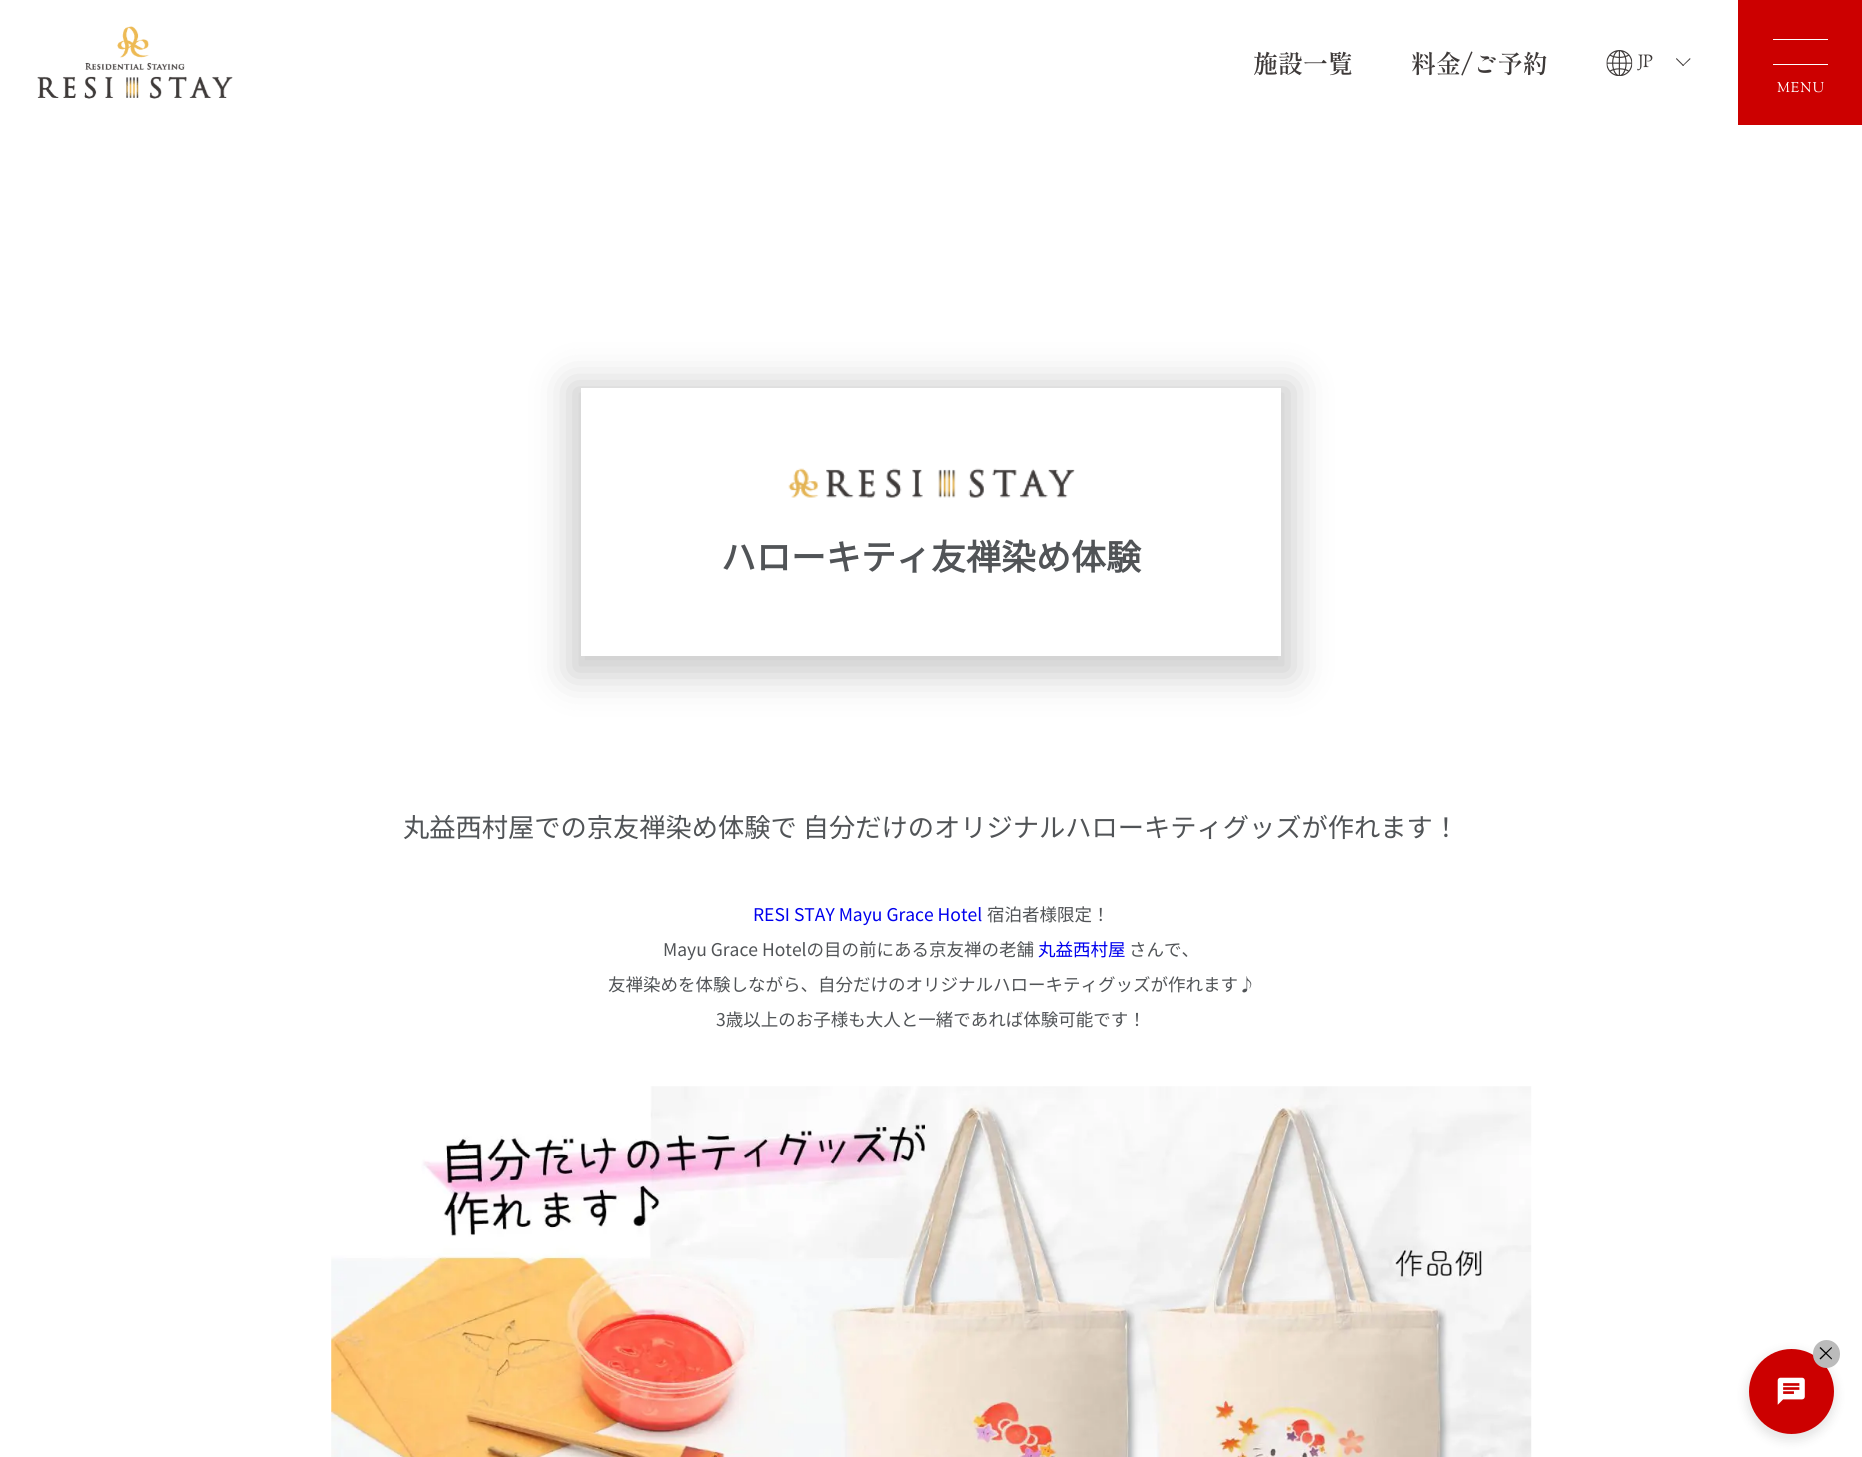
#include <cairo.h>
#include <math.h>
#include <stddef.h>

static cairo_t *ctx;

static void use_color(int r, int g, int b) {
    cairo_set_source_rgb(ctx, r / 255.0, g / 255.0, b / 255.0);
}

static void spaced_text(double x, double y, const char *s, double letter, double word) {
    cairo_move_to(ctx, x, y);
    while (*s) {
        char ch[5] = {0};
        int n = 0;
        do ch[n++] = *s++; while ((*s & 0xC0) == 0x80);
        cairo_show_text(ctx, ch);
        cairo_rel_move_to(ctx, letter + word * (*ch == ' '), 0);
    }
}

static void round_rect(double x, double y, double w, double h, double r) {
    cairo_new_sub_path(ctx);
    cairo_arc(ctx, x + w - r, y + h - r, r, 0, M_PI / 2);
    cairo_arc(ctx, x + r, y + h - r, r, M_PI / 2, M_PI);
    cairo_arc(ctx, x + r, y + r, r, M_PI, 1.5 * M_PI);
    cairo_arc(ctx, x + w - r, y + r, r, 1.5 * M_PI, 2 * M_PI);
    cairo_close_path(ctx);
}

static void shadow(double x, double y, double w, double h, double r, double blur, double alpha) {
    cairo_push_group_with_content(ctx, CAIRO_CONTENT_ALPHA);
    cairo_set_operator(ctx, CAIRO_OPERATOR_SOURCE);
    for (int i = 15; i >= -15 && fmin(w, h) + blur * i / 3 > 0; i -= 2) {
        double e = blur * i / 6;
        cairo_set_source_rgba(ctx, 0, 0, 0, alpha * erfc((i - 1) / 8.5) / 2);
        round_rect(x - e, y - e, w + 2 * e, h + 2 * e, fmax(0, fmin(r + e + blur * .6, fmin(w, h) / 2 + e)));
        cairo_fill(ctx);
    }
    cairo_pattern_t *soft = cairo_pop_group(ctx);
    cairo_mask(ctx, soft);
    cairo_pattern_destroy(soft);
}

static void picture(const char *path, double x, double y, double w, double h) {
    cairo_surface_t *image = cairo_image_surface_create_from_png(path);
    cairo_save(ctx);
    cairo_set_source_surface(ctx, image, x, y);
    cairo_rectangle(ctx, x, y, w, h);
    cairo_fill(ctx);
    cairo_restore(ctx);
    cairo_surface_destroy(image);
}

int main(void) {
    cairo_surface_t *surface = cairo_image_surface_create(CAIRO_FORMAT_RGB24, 1862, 1457);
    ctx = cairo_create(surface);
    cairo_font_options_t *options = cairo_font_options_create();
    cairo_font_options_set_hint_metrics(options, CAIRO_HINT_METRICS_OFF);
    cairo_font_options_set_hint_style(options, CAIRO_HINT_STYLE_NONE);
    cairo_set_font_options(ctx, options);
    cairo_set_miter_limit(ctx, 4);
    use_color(255, 255, 255);
    cairo_paint(ctx);
    picture("img1.png", 37, 26, 196, 73);
    cairo_select_font_face(ctx, "Shippori Mincho SemiBold", CAIRO_FONT_SLANT_NORMAL, CAIRO_FONT_WEIGHT_NORMAL);
    cairo_set_font_size(ctx, 25);
    use_color(62, 58, 57);
    cairo_move_to(ctx, 1253, 73);
    cairo_show_text(ctx, "施設一覧");
    cairo_move_to(ctx, 1411, 73);
    cairo_show_text(ctx, "料金/ご予約");
    picture("img2.png", 1606, 50, 27, 26);
    cairo_select_font_face(ctx, "Sorts Mill Goudy", CAIRO_FONT_SLANT_NORMAL, CAIRO_FONT_WEIGHT_NORMAL);
    cairo_set_font_size(ctx, 17.5);
    cairo_move_to(ctx, 1638, 67);
    cairo_show_text(ctx, "JP");
    cairo_new_path(ctx);
    cairo_move_to(ctx, 1690, 58);
    cairo_line_to(ctx, 1690.5, 59);
    cairo_line_to(ctx, 1683, 66);
    cairo_line_to(ctx, 1682.5, 65.5);
    cairo_close_path(ctx);
    cairo_fill(ctx);
    cairo_new_path(ctx);
    cairo_move_to(ctx, 1676.5, 58);
    cairo_line_to(ctx, 1684, 65.5);
    cairo_line_to(ctx, 1683, 66);
    cairo_line_to(ctx, 1676, 59);
    cairo_close_path(ctx);
    cairo_fill(ctx);
    use_color(204, 0, 0);
    cairo_rectangle(ctx, 1738, 0, 124, 125);
    cairo_fill(ctx);
    use_color(255, 255, 255);
    cairo_rectangle(ctx, 1773, 39, 55, 1);
    cairo_fill(ctx);
    cairo_rectangle(ctx, 1773, 64, 55, 1);
    cairo_fill(ctx);
    cairo_set_font_size(ctx, 14);
    spaced_text(1777, 92, "MENU", 1, 0);
    use_color(0, 0, 0);
    shadow(569, 383, 725, 293, 0, 19, 0.2);
    use_color(255, 255, 255);
    cairo_rectangle(ctx, 581, 388, 700, 268);
    cairo_fill(ctx);
    picture("img3.png", 788, 468, 287, 30);
    cairo_select_font_face(ctx, "Noto Sans JP", CAIRO_FONT_SLANT_NORMAL, CAIRO_FONT_WEIGHT_BOLD);
    cairo_set_font_size(ctx, 35);
    use_color(81, 84, 87);
    cairo_move_to(ctx, 721, 570);
    cairo_show_text(ctx, "ハローキティ友禅染め体験");
    cairo_select_font_face(ctx, "Noto Sans JP Thin", CAIRO_FONT_SLANT_NORMAL, CAIRO_FONT_WEIGHT_NORMAL);
    cairo_set_font_size(ctx, 26.25);
    cairo_move_to(ctx, 403, 837);
    cairo_show_text(ctx, "丸益西村屋での京友禅染め体験で 自分だけのオリジナルハローキティグッズが作れます！");
    cairo_set_font_size(ctx, 17.5);
    use_color(0, 0, 238);
    cairo_move_to(ctx, 753, 921);
    cairo_show_text(ctx, "RESI STAY Mayu Grace Hotel");
    use_color(81, 84, 87);
    cairo_move_to(ctx, 987, 921);
    cairo_show_text(ctx, "宿泊者様限定！");
    cairo_move_to(ctx, 663, 956);
    cairo_show_text(ctx, "Mayu Grace Hotelの目の前にある京友禅の老舗");
    use_color(0, 0, 238);
    cairo_move_to(ctx, 1038, 956);
    cairo_show_text(ctx, "丸益西村屋");
    use_color(81, 84, 87);
    cairo_move_to(ctx, 1129, 956);
    cairo_show_text(ctx, "さんで、");
    cairo_move_to(ctx, 608, 991);
    cairo_show_text(ctx, "友禅染めを体験しながら、自分だけのオリジナルハローキティグッズが作れます♪");
    cairo_move_to(ctx, 716, 1026);
    cairo_show_text(ctx, "3歳以上のお子様も大人と一緒であれば体験可能です！");
    picture("img4.png", 331, 1086, 1201, 371);
    use_color(0, 0, 0);
    shadow(1746, 1351, 90, 90, 45, 5, 0.1);
    use_color(204, 0, 0);
    cairo_arc(ctx, 1791.5, 1391.5, 42.5, 0, 2 * M_PI);
    cairo_fill(ctx);
    picture("img5.png", 1777, 1377, 28, 28);
    use_color(187, 187, 187);
    round_rect(1813, 1340, 27, 28, 13.5);
    cairo_fill(ctx);
    use_color(0, 0, 0);
    cairo_new_path(ctx);
    cairo_move_to(ctx, 1819.5, 1358.5);
    cairo_line_to(ctx, 1831.5, 1347);
    cairo_line_to(ctx, 1832, 1348);
    cairo_line_to(ctx, 1820.5, 1359.5);
    cairo_close_path(ctx);
    cairo_fill(ctx);
    cairo_new_path(ctx);
    cairo_move_to(ctx, 1820.5, 1347);
    cairo_line_to(ctx, 1832, 1358.5);
    cairo_line_to(ctx, 1831.5, 1359.5);
    cairo_line_to(ctx, 1819.5, 1348);
    cairo_close_path(ctx);
    cairo_fill(ctx);
    cairo_surface_write_to_png(surface, "result.png");
    cairo_font_options_destroy(options);
    cairo_destroy(ctx);
    cairo_surface_destroy(surface);
    return 0;
}
